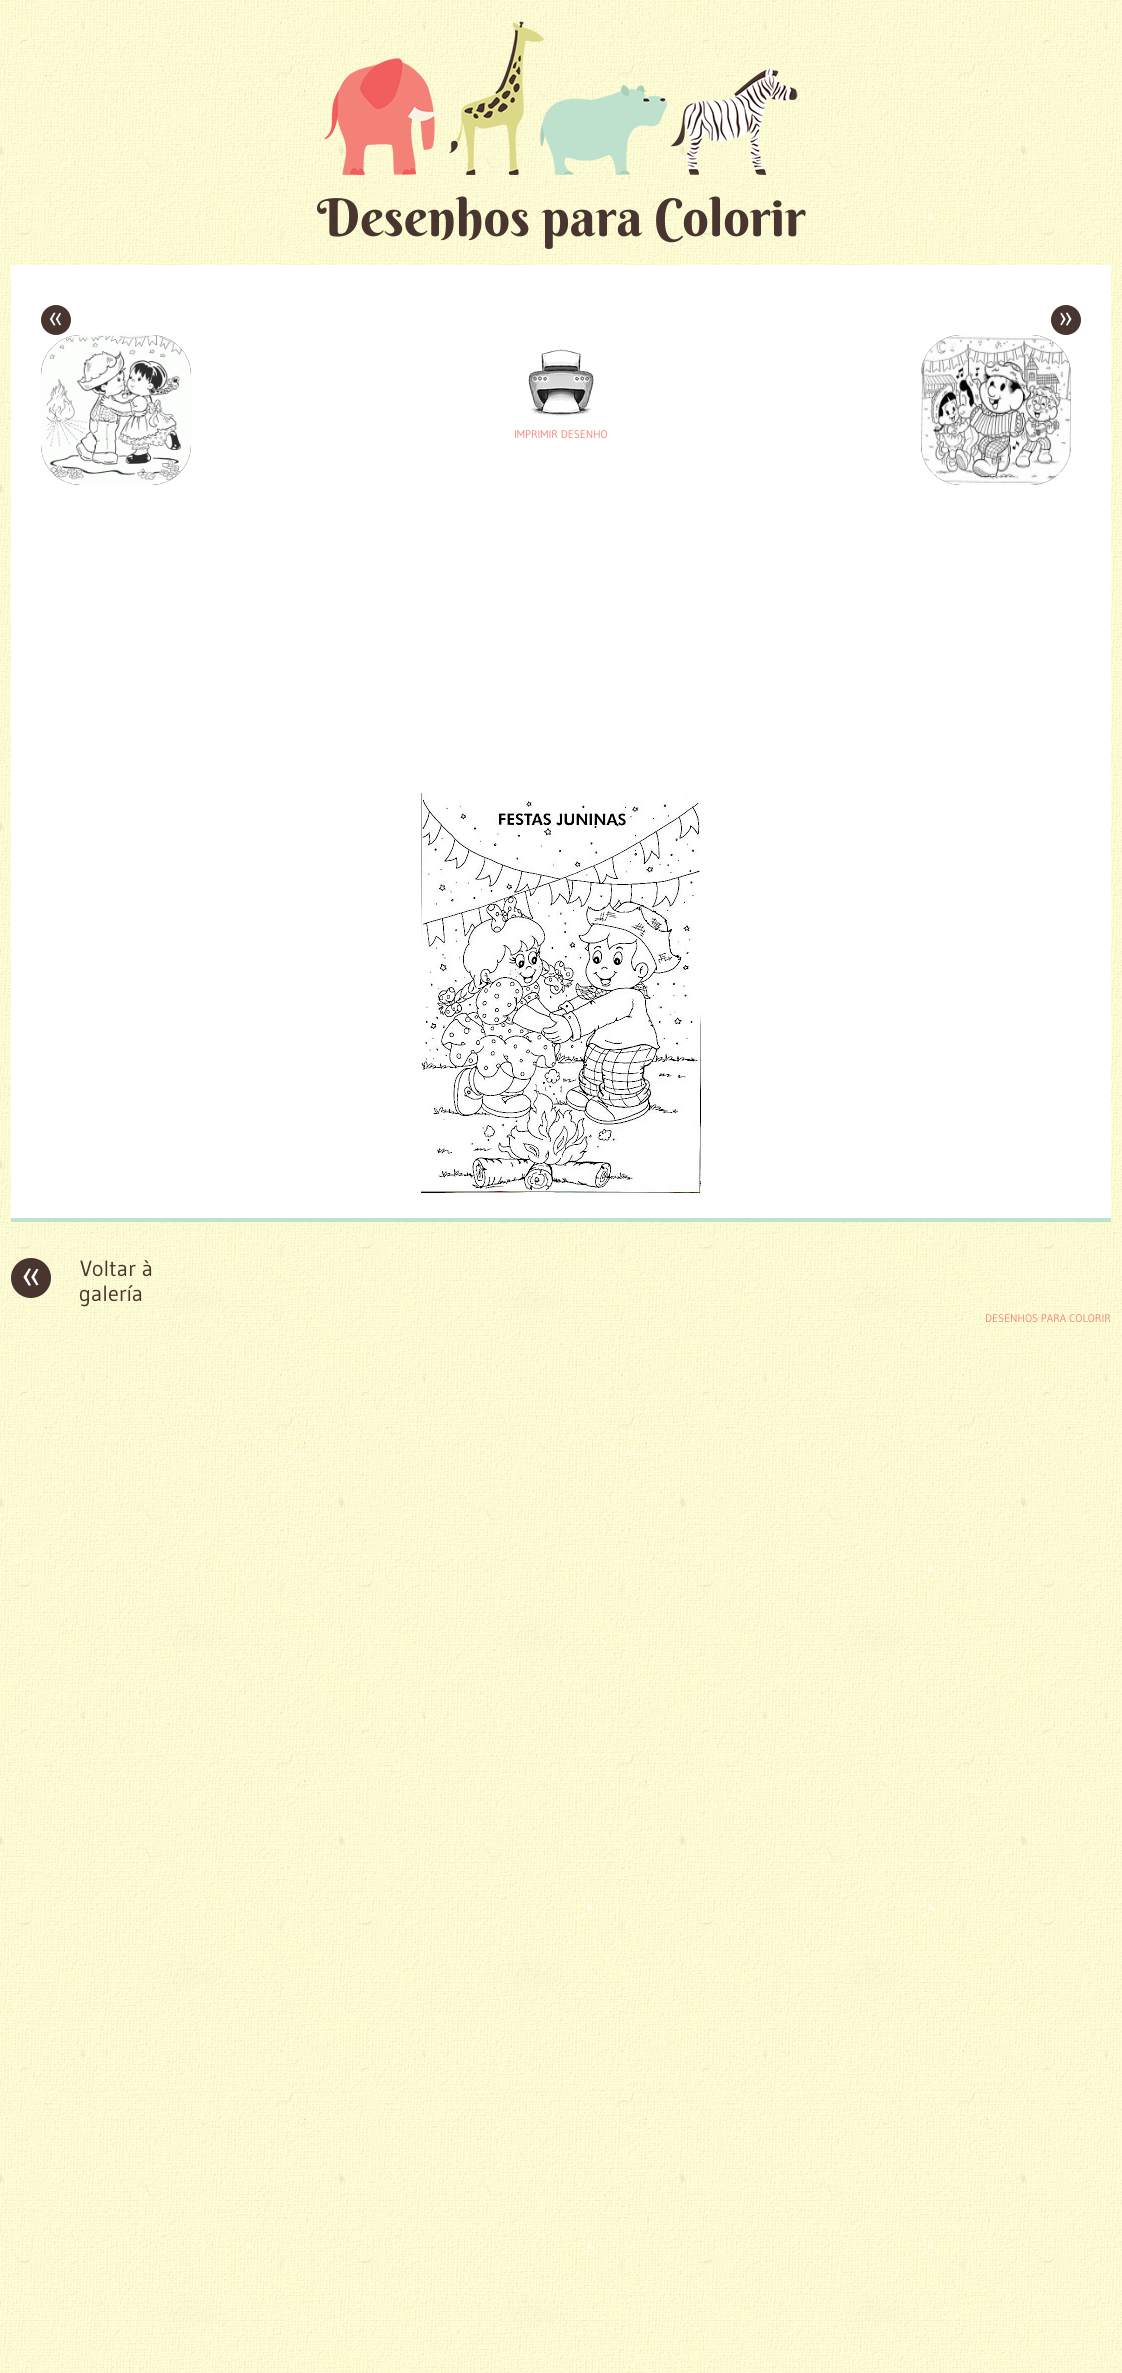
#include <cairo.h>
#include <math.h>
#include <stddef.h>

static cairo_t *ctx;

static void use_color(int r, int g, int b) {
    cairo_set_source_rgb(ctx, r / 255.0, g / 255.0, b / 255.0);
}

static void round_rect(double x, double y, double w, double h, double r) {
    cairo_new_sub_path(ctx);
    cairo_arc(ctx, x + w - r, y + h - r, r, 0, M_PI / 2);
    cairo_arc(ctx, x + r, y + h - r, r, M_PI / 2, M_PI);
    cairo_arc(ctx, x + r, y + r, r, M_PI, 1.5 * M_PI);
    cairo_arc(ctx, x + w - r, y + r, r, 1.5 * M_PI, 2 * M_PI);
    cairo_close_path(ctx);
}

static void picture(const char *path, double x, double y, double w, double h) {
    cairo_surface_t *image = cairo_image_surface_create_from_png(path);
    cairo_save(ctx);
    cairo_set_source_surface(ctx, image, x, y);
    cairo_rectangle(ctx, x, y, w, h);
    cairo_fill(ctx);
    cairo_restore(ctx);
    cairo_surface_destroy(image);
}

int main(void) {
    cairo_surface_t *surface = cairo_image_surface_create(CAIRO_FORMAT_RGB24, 1122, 2373);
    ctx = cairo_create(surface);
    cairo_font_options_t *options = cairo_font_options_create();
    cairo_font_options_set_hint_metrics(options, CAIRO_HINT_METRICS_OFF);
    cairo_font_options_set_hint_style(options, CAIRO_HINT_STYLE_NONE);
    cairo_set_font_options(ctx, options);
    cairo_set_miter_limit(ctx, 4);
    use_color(255, 255, 255);
    cairo_paint(ctx);
    picture("img1.png", 0, 0, 1122, 2373);
    picture("img2.png", 324, 21, 474, 154);
    cairo_select_font_face(ctx, "Berkshire Swash", CAIRO_FONT_SLANT_NORMAL, CAIRO_FONT_WEIGHT_NORMAL);
    cairo_set_font_size(ctx, 52);
    use_color(73, 53, 47);
    cairo_move_to(ctx, 317, 236);
    cairo_show_text(ctx, "Desenhos para Colorir");
    use_color(255, 255, 255);
    cairo_rectangle(ctx, 11, 265, 1100, 953);
    cairo_fill(ctx);
    use_color(188, 228, 205);
    cairo_rectangle(ctx, 11, 1218, 1100, 4);
    cairo_fill(ctx);
    use_color(73, 53, 47);
    cairo_arc(ctx, 56, 320, 15, 0, 2 * M_PI);
    cairo_fill(ctx);
    cairo_select_font_face(ctx, "Gudea", CAIRO_FONT_SLANT_NORMAL, CAIRO_FONT_WEIGHT_NORMAL);
    cairo_set_font_size(ctx, 30);
    use_color(255, 255, 255);
    cairo_move_to(ctx, 48, 328);
    cairo_show_text(ctx, "«");
    use_color(73, 53, 47);
    round_rect(41, 335, 150, 150, 40);
    cairo_fill(ctx);
    picture("img3.png", 41, 335, 150, 150);
    cairo_arc(ctx, 1066, 320, 15, 0, 2 * M_PI);
    cairo_fill(ctx);
    use_color(255, 255, 255);
    cairo_move_to(ctx, 1058, 328);
    cairo_show_text(ctx, "»");
    use_color(73, 53, 47);
    round_rect(921, 335, 150, 150, 40);
    cairo_fill(ctx);
    picture("img4.png", 921, 335, 150, 150);
    picture("img5.png", 528, 349, 66, 67);
    cairo_set_font_size(ctx, 11);
    use_color(244, 130, 120);
    cairo_move_to(ctx, 514, 438);
    cairo_show_text(ctx, "IMPRIMIR DESENHO");
    picture("img6.png", 421, 793, 280, 400);
    use_color(73, 53, 47);
    cairo_arc(ctx, 31, 1278, 20, 0, 2 * M_PI);
    cairo_fill(ctx);
    cairo_set_font_size(ctx, 40);
    use_color(255, 255, 255);
    cairo_move_to(ctx, 21, 1289);
    cairo_show_text(ctx, "«");
    cairo_set_font_size(ctx, 22);
    use_color(73, 53, 47);
    cairo_move_to(ctx, 80, 1276);
    cairo_show_text(ctx, "Voltar à");
    cairo_move_to(ctx, 79, 1301);
    cairo_show_text(ctx, "galería");
    cairo_set_font_size(ctx, 11);
    use_color(244, 130, 120);
    cairo_move_to(ctx, 985, 1322);
    cairo_show_text(ctx, "DESENHOS PARA COLORIR");
    cairo_surface_write_to_png(surface, "result.png");
    cairo_font_options_destroy(options);
    cairo_destroy(ctx);
    cairo_surface_destroy(surface);
    return 0;
}
